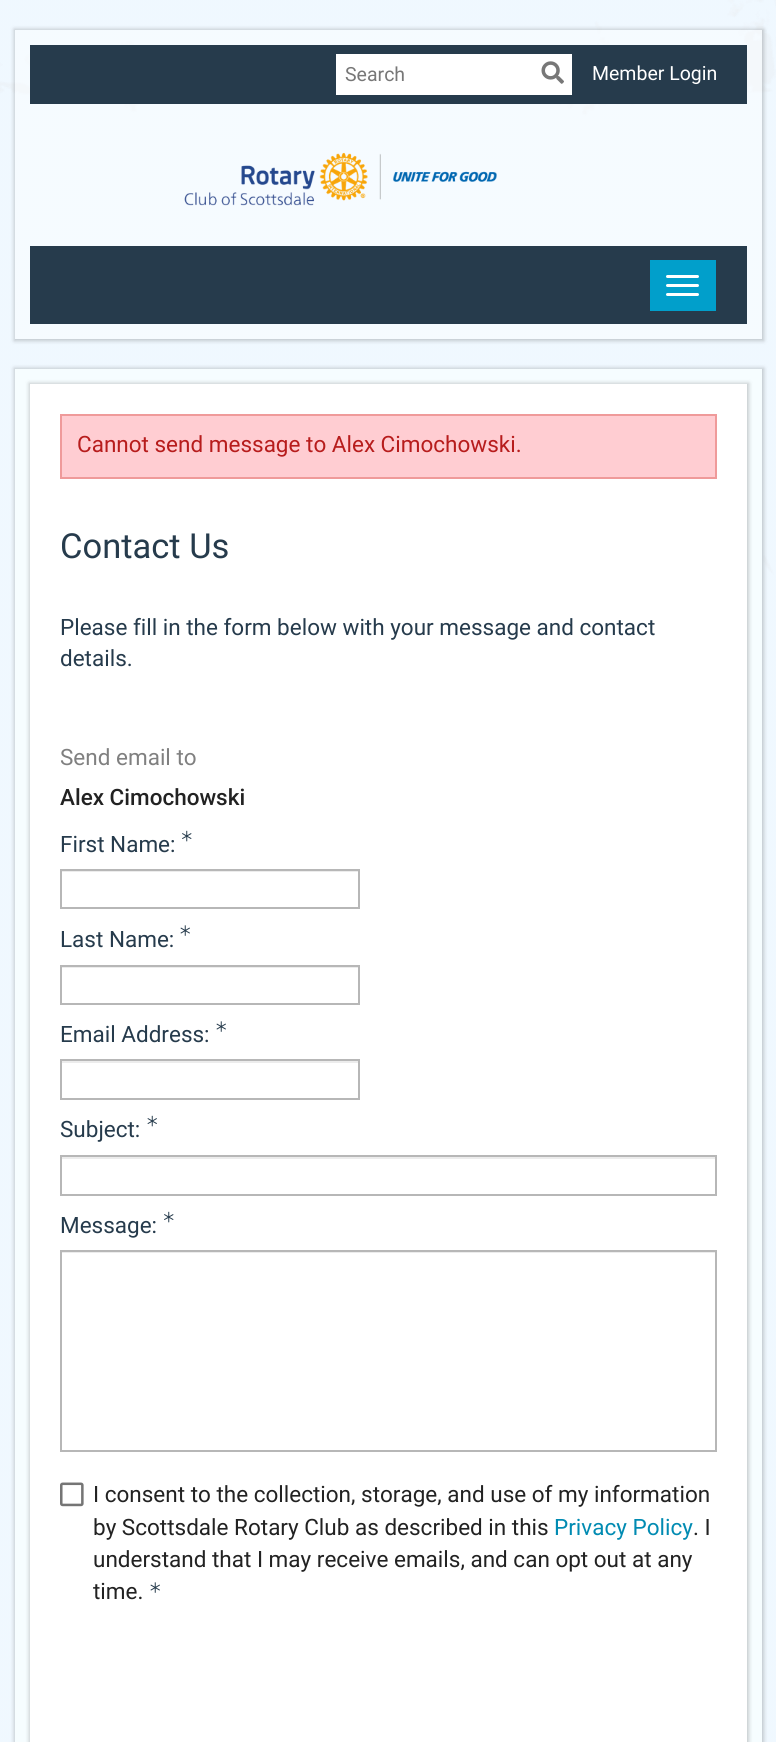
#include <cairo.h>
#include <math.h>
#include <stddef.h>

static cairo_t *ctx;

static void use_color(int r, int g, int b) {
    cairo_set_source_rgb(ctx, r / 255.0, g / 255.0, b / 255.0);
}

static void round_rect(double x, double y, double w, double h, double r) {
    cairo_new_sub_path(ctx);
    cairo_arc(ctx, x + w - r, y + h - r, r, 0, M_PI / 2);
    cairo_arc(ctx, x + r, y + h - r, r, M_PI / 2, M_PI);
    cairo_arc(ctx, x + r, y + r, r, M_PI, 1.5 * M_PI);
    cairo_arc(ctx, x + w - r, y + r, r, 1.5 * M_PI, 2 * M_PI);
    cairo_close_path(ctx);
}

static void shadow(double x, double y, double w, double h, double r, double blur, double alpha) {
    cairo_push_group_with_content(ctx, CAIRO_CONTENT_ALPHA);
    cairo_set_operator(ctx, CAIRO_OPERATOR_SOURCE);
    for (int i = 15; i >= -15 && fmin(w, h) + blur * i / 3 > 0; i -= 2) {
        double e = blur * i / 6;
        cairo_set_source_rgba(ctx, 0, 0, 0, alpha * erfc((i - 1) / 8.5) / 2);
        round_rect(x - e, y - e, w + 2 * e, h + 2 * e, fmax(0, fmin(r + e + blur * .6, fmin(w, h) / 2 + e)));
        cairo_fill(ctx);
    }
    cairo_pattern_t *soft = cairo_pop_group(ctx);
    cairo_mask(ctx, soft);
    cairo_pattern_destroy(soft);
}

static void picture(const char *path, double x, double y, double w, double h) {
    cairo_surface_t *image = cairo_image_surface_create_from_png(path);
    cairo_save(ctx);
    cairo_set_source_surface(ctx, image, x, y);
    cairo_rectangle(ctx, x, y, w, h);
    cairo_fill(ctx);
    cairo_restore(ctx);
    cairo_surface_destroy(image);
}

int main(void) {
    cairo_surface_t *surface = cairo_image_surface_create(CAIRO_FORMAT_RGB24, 776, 1742);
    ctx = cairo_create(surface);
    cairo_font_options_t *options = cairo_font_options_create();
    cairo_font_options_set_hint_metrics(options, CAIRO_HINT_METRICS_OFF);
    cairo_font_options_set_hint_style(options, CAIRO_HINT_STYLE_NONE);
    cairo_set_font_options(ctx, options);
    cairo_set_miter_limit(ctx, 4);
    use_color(255, 255, 255);
    cairo_paint(ctx);
    picture("img1.png", 0, 0, 776, 1742);
    cairo_save(ctx);
    cairo_set_fill_rule(ctx, CAIRO_FILL_RULE_EVEN_ODD);
    cairo_new_path(ctx);
    cairo_move_to(ctx, 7, 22);
    cairo_line_to(ctx, 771, 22);
    cairo_line_to(ctx, 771, 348);
    cairo_line_to(ctx, 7, 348);
    cairo_close_path(ctx);
    cairo_move_to(ctx, 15, 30);
    cairo_line_to(ctx, 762, 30);
    cairo_line_to(ctx, 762, 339);
    cairo_line_to(ctx, 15, 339);
    cairo_close_path(ctx);
    cairo_clip(ctx);
    use_color(0, 0, 0);
    shadow(14, 29, 750, 312, 0, 2, 0.2);
    cairo_restore(ctx);
    cairo_set_source_rgba(ctx, 1, 1, 1, 0.4);
    cairo_rectangle(ctx, 15, 30, 747, 309);
    cairo_fill(ctx);
    use_color(38, 59, 76);
    cairo_rectangle(ctx, 30, 45, 717, 59);
    cairo_fill(ctx);
    use_color(255, 255, 255);
    cairo_rectangle(ctx, 336, 54, 236, 41);
    cairo_fill(ctx);
    cairo_select_font_face(ctx, "Roboto", CAIRO_FONT_SLANT_NORMAL, CAIRO_FONT_WEIGHT_NORMAL);
    cairo_set_font_size(ctx, 19.5);
    use_color(119, 119, 119);
    cairo_move_to(ctx, 345, 81);
    cairo_show_text(ctx, "Search");
    picture("img2.png", 541, 61, 23, 23);
    use_color(255, 255, 255);
    cairo_move_to(ctx, 592, 80);
    cairo_show_text(ctx, "Member Login");
    picture("img3.png", 184, 152, 313, 54);
    use_color(38, 59, 76);
    cairo_rectangle(ctx, 30, 246, 717, 78);
    cairo_fill(ctx);
    use_color(1, 159, 203);
    cairo_rectangle(ctx, 650, 260, 66, 51);
    cairo_fill(ctx);
    use_color(255, 255, 255);
    round_rect(666, 275, 33, 3, 1.5);
    cairo_fill(ctx);
    round_rect(666, 284, 33, 3, 1.5);
    cairo_fill(ctx);
    round_rect(666, 293, 33, 3, 1.5);
    cairo_fill(ctx);
    use_color(0, 0, 0);
    shadow(14, 368, 750, 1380, 0, 2, 0.2);
    use_color(246, 253, 255);
    cairo_rectangle(ctx, 15, 369, 747, 1373);
    cairo_fill(ctx);
    use_color(0, 0, 0);
    shadow(29, 383, 720, 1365, 0, 2, 0.2);
    use_color(255, 255, 255);
    cairo_rectangle(ctx, 30, 384, 717, 1358);
    cairo_fill(ctx);
    use_color(255, 205, 210);
    cairo_rectangle(ctx, 61, 415, 655, 63);
    cairo_fill_preserve(ctx);
    use_color(239, 154, 154);
    cairo_stroke(ctx);
    cairo_set_font_size(ctx, 22.5);
    use_color(183, 28, 28);
    cairo_move_to(ctx, 77, 452);
    cairo_show_text(ctx, "Cannot send message to Alex Cimochowski.");
    cairo_set_font_size(ctx, 34.5);
    use_color(38, 59, 76);
    cairo_move_to(ctx, 60, 558);
    cairo_show_text(ctx, "Contact Us");
    cairo_set_font_size(ctx, 22.5);
    cairo_move_to(ctx, 60, 635);
    cairo_show_text(ctx, "Please fill in the form below with your message and contact");
    cairo_move_to(ctx, 60, 666);
    cairo_show_text(ctx, "details.");
    use_color(128, 128, 128);
    cairo_move_to(ctx, 60, 765);
    cairo_show_text(ctx, "Send email to");
    cairo_select_font_face(ctx, "Roboto Medium", CAIRO_FONT_SLANT_NORMAL, CAIRO_FONT_WEIGHT_NORMAL);
    use_color(34, 34, 34);
    cairo_move_to(ctx, 60, 805);
    cairo_show_text(ctx, "Alex Cimochowski");
    cairo_select_font_face(ctx, "Roboto", CAIRO_FONT_SLANT_NORMAL, CAIRO_FONT_WEIGHT_NORMAL);
    use_color(38, 59, 76);
    cairo_move_to(ctx, 60, 852);
    cairo_show_text(ctx, "First Name:");
    picture("img4.png", 182, 830, 10, 12);
    use_color(236, 236, 236);
    cairo_rectangle(ctx, 62, 871, 297, 1);
    cairo_fill(ctx);
    cairo_rectangle(ctx, 61, 870, 298, 38);
    use_color(183, 183, 183);
    cairo_stroke(ctx);
    use_color(38, 59, 76);
    cairo_move_to(ctx, 60, 947);
    cairo_show_text(ctx, "Last Name:");
    picture("img5.png", 180, 925, 10, 11);
    use_color(236, 236, 236);
    cairo_rectangle(ctx, 62, 967, 297, 1);
    cairo_fill(ctx);
    cairo_rectangle(ctx, 61, 966, 298, 38);
    use_color(183, 183, 183);
    cairo_stroke(ctx);
    use_color(38, 59, 76);
    cairo_move_to(ctx, 60, 1042);
    cairo_show_text(ctx, "Email Address:");
    picture("img5.png", 216, 1021, 10, 11);
    use_color(236, 236, 236);
    cairo_rectangle(ctx, 62, 1061, 297, 2);
    cairo_fill(ctx);
    cairo_rectangle(ctx, 61, 1060, 298, 39);
    use_color(183, 183, 183);
    cairo_stroke(ctx);
    use_color(38, 59, 76);
    cairo_move_to(ctx, 60, 1137);
    cairo_show_text(ctx, "Subject:");
    picture("img6.png", 147, 1115, 10, 12);
    use_color(236, 236, 236);
    cairo_rectangle(ctx, 62, 1157, 654, 2);
    cairo_fill(ctx);
    cairo_rectangle(ctx, 61, 1156, 655, 39);
    use_color(183, 183, 183);
    cairo_stroke(ctx);
    use_color(38, 59, 76);
    cairo_move_to(ctx, 60, 1233);
    cairo_show_text(ctx, "Message:");
    picture("img4.png", 164, 1211, 10, 12);
    use_color(236, 236, 236);
    cairo_rectangle(ctx, 62, 1252, 654, 1);
    cairo_fill(ctx);
    cairo_rectangle(ctx, 61, 1251, 655, 200);
    use_color(183, 183, 183);
    cairo_stroke(ctx);
    picture("img7.png", 60, 1482, 24, 25);
    use_color(34, 34, 34);
    cairo_move_to(ctx, 93, 1502);
    cairo_show_text(ctx, "I consent to the collection, storage, and use of my information");
    cairo_move_to(ctx, 93, 1535);
    cairo_show_text(ctx, "by Scottsdale Rotary Club as described in this");
    use_color(1, 139, 178);
    cairo_move_to(ctx, 554, 1535);
    cairo_show_text(ctx, "Privacy Policy");
    use_color(34, 34, 34);
    cairo_move_to(ctx, 693, 1535);
    cairo_show_text(ctx, ". I");
    cairo_move_to(ctx, 93, 1567);
    cairo_show_text(ctx, "understand that I may receive emails, and can opt out at any");
    cairo_move_to(ctx, 93, 1599);
    cairo_show_text(ctx, "time.");
    picture("img5.png", 150, 1582, 10, 11);
    cairo_surface_write_to_png(surface, "result.png");
    cairo_font_options_destroy(options);
    cairo_destroy(ctx);
    cairo_surface_destroy(surface);
    return 0;
}
